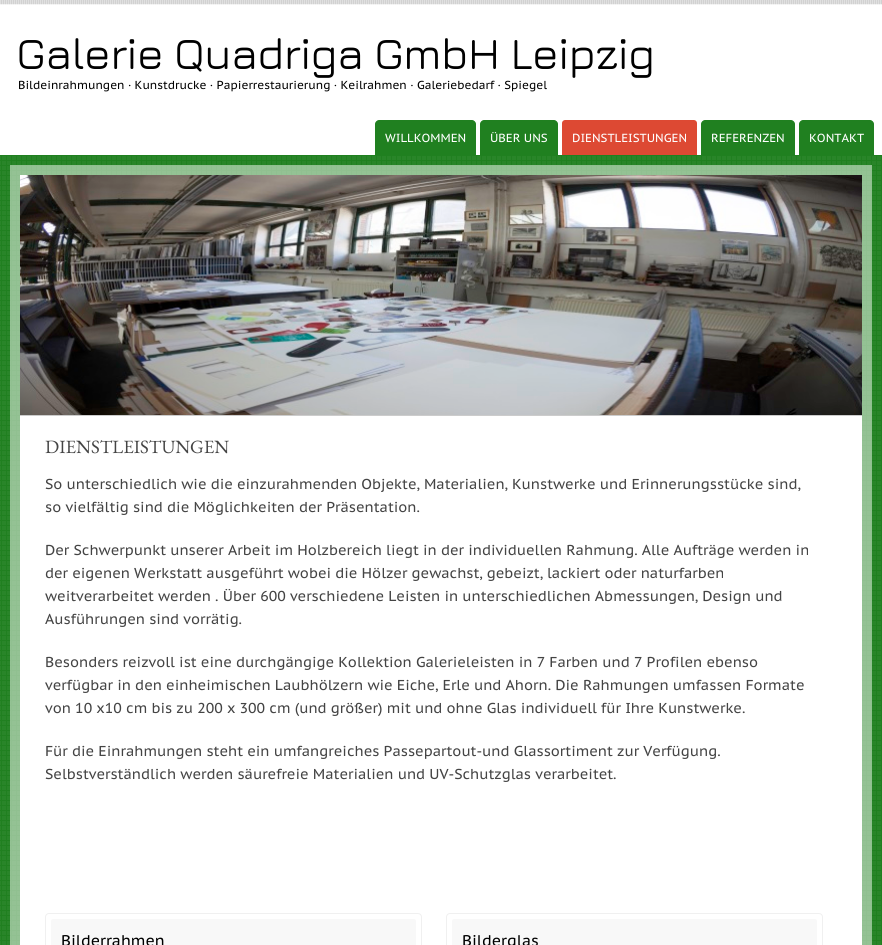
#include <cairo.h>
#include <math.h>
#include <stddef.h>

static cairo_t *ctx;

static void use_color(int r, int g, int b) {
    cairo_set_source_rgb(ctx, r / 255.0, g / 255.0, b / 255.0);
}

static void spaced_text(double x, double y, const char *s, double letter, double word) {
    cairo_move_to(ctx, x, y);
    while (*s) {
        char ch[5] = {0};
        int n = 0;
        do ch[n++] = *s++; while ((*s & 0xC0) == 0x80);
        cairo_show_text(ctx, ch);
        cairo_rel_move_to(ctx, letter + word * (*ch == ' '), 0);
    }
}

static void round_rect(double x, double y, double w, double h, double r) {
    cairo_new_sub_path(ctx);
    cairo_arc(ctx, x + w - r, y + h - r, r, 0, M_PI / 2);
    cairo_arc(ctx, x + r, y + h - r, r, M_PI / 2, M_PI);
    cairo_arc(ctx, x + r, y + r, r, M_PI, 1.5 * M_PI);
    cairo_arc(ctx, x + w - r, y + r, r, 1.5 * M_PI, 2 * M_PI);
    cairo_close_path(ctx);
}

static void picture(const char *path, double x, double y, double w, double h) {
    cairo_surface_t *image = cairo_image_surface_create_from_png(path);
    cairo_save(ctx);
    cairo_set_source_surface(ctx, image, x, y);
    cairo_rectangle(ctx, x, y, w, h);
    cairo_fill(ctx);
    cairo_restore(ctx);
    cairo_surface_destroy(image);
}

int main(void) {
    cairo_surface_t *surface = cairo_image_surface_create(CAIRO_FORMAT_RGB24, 882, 945);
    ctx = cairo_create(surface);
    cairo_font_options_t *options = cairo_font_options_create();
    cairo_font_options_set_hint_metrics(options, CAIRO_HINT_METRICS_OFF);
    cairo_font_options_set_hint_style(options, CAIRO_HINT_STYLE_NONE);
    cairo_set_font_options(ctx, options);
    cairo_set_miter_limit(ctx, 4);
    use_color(255, 255, 255);
    cairo_paint(ctx);
    use_color(204, 204, 204);
    cairo_rectangle(ctx, 0, 0, 882, 5);
    cairo_fill(ctx);
    picture("img1.png", 0, 0, 882, 5);
    cairo_set_source_rgba(ctx, 1, 1, 1, 0.7);
    cairo_rectangle(ctx, 0, 4, 882, 1);
    cairo_fill(ctx);
    cairo_select_font_face(ctx, "Jura Medium", CAIRO_FONT_SLANT_NORMAL, CAIRO_FONT_WEIGHT_NORMAL);
    cairo_set_font_size(ctx, 44.2);
    use_color(0, 0, 0);
    spaced_text(16, 69, "Galerie Quadriga GmbH Leipzig", -1, 0);
    cairo_select_font_face(ctx, "PT Sans Caption", CAIRO_FONT_SLANT_NORMAL, CAIRO_FONT_WEIGHT_NORMAL);
    cairo_set_font_size(ctx, 11.6);
    cairo_move_to(ctx, 18, 89);
    cairo_show_text(ctx, "Bildeinrahmungen · Kunstdrucke · Papierrestaurierung · Keilrahmen · Galeriebedarf · Spiegel");
    use_color(32, 128, 32);
    cairo_new_path(ctx);
    cairo_move_to(ctx, 379, 120);
    cairo_line_to(ctx, 472, 120);
    cairo_curve_to(ctx, 474, 120, 476, 122, 476, 124);
    cairo_line_to(ctx, 476, 155);
    cairo_line_to(ctx, 375, 155);
    cairo_line_to(ctx, 375, 124);
    cairo_curve_to(ctx, 375, 122, 377, 120, 379, 120);
    cairo_close_path(ctx);
    cairo_fill(ctx);
    cairo_set_font_size(ctx, 11.75);
    use_color(255, 255, 255);
    cairo_move_to(ctx, 385, 142);
    cairo_show_text(ctx, "WILLKOMMEN");
    use_color(32, 128, 32);
    cairo_new_path(ctx);
    cairo_move_to(ctx, 484, 120);
    cairo_line_to(ctx, 554, 120);
    cairo_curve_to(ctx, 556, 120, 558, 122, 558, 124);
    cairo_line_to(ctx, 558, 155);
    cairo_line_to(ctx, 480, 155);
    cairo_line_to(ctx, 480, 124);
    cairo_curve_to(ctx, 480, 122, 482, 120, 484, 120);
    cairo_close_path(ctx);
    cairo_fill(ctx);
    use_color(255, 255, 255);
    cairo_move_to(ctx, 490, 142);
    cairo_show_text(ctx, "ÜBER UNS");
    use_color(221, 73, 51);
    cairo_new_path(ctx);
    cairo_move_to(ctx, 565, 120);
    cairo_line_to(ctx, 694, 120);
    cairo_curve_to(ctx, 695.5, 120, 697, 121.5, 697, 123);
    cairo_line_to(ctx, 697, 155);
    cairo_line_to(ctx, 562, 155);
    cairo_line_to(ctx, 562, 123);
    cairo_curve_to(ctx, 562, 121.5, 563.5, 120, 565, 120);
    cairo_close_path(ctx);
    cairo_fill(ctx);
    use_color(255, 255, 255);
    cairo_move_to(ctx, 572, 142);
    cairo_show_text(ctx, "DIENSTLEISTUNGEN");
    use_color(32, 128, 32);
    cairo_new_path(ctx);
    cairo_move_to(ctx, 705, 120);
    cairo_line_to(ctx, 791, 120);
    cairo_curve_to(ctx, 793, 120, 795, 122, 795, 124);
    cairo_line_to(ctx, 795, 155);
    cairo_line_to(ctx, 701, 155);
    cairo_line_to(ctx, 701, 124);
    cairo_curve_to(ctx, 701, 122, 703, 120, 705, 120);
    cairo_close_path(ctx);
    cairo_fill(ctx);
    use_color(255, 255, 255);
    cairo_move_to(ctx, 711, 142);
    cairo_show_text(ctx, "REFERENZEN");
    use_color(32, 128, 32);
    cairo_new_path(ctx);
    cairo_move_to(ctx, 803, 120);
    cairo_line_to(ctx, 870, 120);
    cairo_curve_to(ctx, 872, 120, 874, 122, 874, 124);
    cairo_line_to(ctx, 874, 155);
    cairo_line_to(ctx, 799, 155);
    cairo_line_to(ctx, 799, 124);
    cairo_curve_to(ctx, 799, 122, 801, 120, 803, 120);
    cairo_close_path(ctx);
    cairo_fill(ctx);
    use_color(255, 255, 255);
    cairo_move_to(ctx, 809, 142);
    cairo_show_text(ctx, "KONTAKT");
    use_color(32, 128, 32);
    cairo_rectangle(ctx, 0, 155, 882, 3);
    cairo_fill(ctx);
    picture("img2.png", 0, 156, 1, 2);
    round_rect(0, 155, 882, 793, 3);
    cairo_fill(ctx);
    picture("img3.png", 0, 156, 881, 789);
    cairo_new_path(ctx);
    cairo_move_to(ctx, 15, 170);
    cairo_line_to(ctx, 867, 170);
    cairo_line_to(ctx, 867, 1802);
    cairo_line_to(ctx, 15, 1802);
    cairo_close_path(ctx);
    cairo_set_source_rgba(ctx, 1, 1, 1, 0.5);
    cairo_set_line_width(ctx, 10);
    cairo_stroke(ctx);
    use_color(255, 255, 255);
    cairo_rectangle(ctx, 20, 416, 842, 529);
    cairo_fill(ctx);
    picture("img4.png", 20, 175, 842, 240);
    use_color(204, 204, 204);
    cairo_rectangle(ctx, 20, 415, 842, 1);
    cairo_fill(ctx);
    cairo_select_font_face(ctx, "EB Garamond", CAIRO_FONT_SLANT_NORMAL, CAIRO_FONT_WEIGHT_NORMAL);
    cairo_set_font_size(ctx, 18.75);
    use_color(68, 68, 68);
    cairo_move_to(ctx, 45, 453);
    cairo_show_text(ctx, "DIENSTLEISTUNGEN");
    cairo_select_font_face(ctx, "PT Sans Caption", CAIRO_FONT_SLANT_NORMAL, CAIRO_FONT_WEIGHT_NORMAL);
    cairo_set_font_size(ctx, 14.35);
    cairo_move_to(ctx, 45, 489);
    cairo_show_text(ctx, "So unterschiedlich wie die einzurahmenden Objekte, Materialien, Kunstwerke und Erinnerungsstücke sind,");
    cairo_move_to(ctx, 45, 512);
    cairo_show_text(ctx, "so vielfältig sind die Möglichkeiten der Präsentation.");
    cairo_move_to(ctx, 45, 555);
    cairo_show_text(ctx, "Der Schwerpunkt unserer Arbeit im Holzbereich liegt in der individuellen Rahmung. Alle Aufträge werden in");
    cairo_move_to(ctx, 45, 578);
    cairo_show_text(ctx, "der eigenen Werkstatt ausgeführt wobei die Hölzer gewachst, gebeizt, lackiert oder naturfarben");
    cairo_move_to(ctx, 45, 601);
    cairo_show_text(ctx, "weitverarbeitet werden . Über 600 verschiedene Leisten in unterschiedlichen Abmessungen, Design und");
    cairo_move_to(ctx, 45, 624);
    cairo_show_text(ctx, "Ausführungen sind vorrätig.");
    cairo_move_to(ctx, 45, 667);
    cairo_show_text(ctx, "Besonders reizvoll ist eine durchgängige Kollektion Galerieleisten in 7 Farben und 7 Profilen ebenso");
    cairo_move_to(ctx, 45, 690);
    cairo_show_text(ctx, "verfügbar in den einheimischen Laubhölzern wie Eiche, Erle und Ahorn. Die Rahmungen umfassen Formate");
    cairo_move_to(ctx, 45, 713);
    cairo_show_text(ctx, "von 10 x10 cm bis zu 200 x 300 cm (und größer) mit und ohne Glas individuell für Ihre Kunstwerke.");
    cairo_move_to(ctx, 45, 756);
    cairo_show_text(ctx, "Für die Einrahmungen steht ein umfangreiches Passepartout-und Glassortiment zur Verfügung.");
    cairo_move_to(ctx, 45, 779);
    cairo_show_text(ctx, "Selbstverständlich werden säurefreie Materialien und UV-Schutzglas verarbeitet.");
    round_rect(45.5, 913.5, 376, 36, 3.5);
    use_color(240, 240, 240);
    cairo_set_line_width(ctx, 1);
    cairo_stroke(ctx);
    use_color(248, 248, 248);
    round_rect(50, 918, 367, 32, 3);
    cairo_fill_preserve(ctx);
    use_color(255, 255, 255);
    cairo_set_line_width(ctx, 2);
    cairo_stroke(ctx);
    cairo_set_font_size(ctx, 15.5);
    use_color(0, 0, 0);
    cairo_move_to(ctx, 61, 946);
    cairo_show_text(ctx, "Bilderrahmen");
    round_rect(446.5, 913.5, 376, 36, 3.5);
    use_color(240, 240, 240);
    cairo_set_line_width(ctx, 1);
    cairo_stroke(ctx);
    use_color(248, 248, 248);
    round_rect(451, 918, 367, 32, 3);
    cairo_fill_preserve(ctx);
    use_color(255, 255, 255);
    cairo_set_line_width(ctx, 2);
    cairo_stroke(ctx);
    use_color(0, 0, 0);
    cairo_move_to(ctx, 462, 946);
    cairo_show_text(ctx, "Bilderglas");
    cairo_surface_write_to_png(surface, "result.png");
    cairo_font_options_destroy(options);
    cairo_destroy(ctx);
    cairo_surface_destroy(surface);
    return 0;
}
